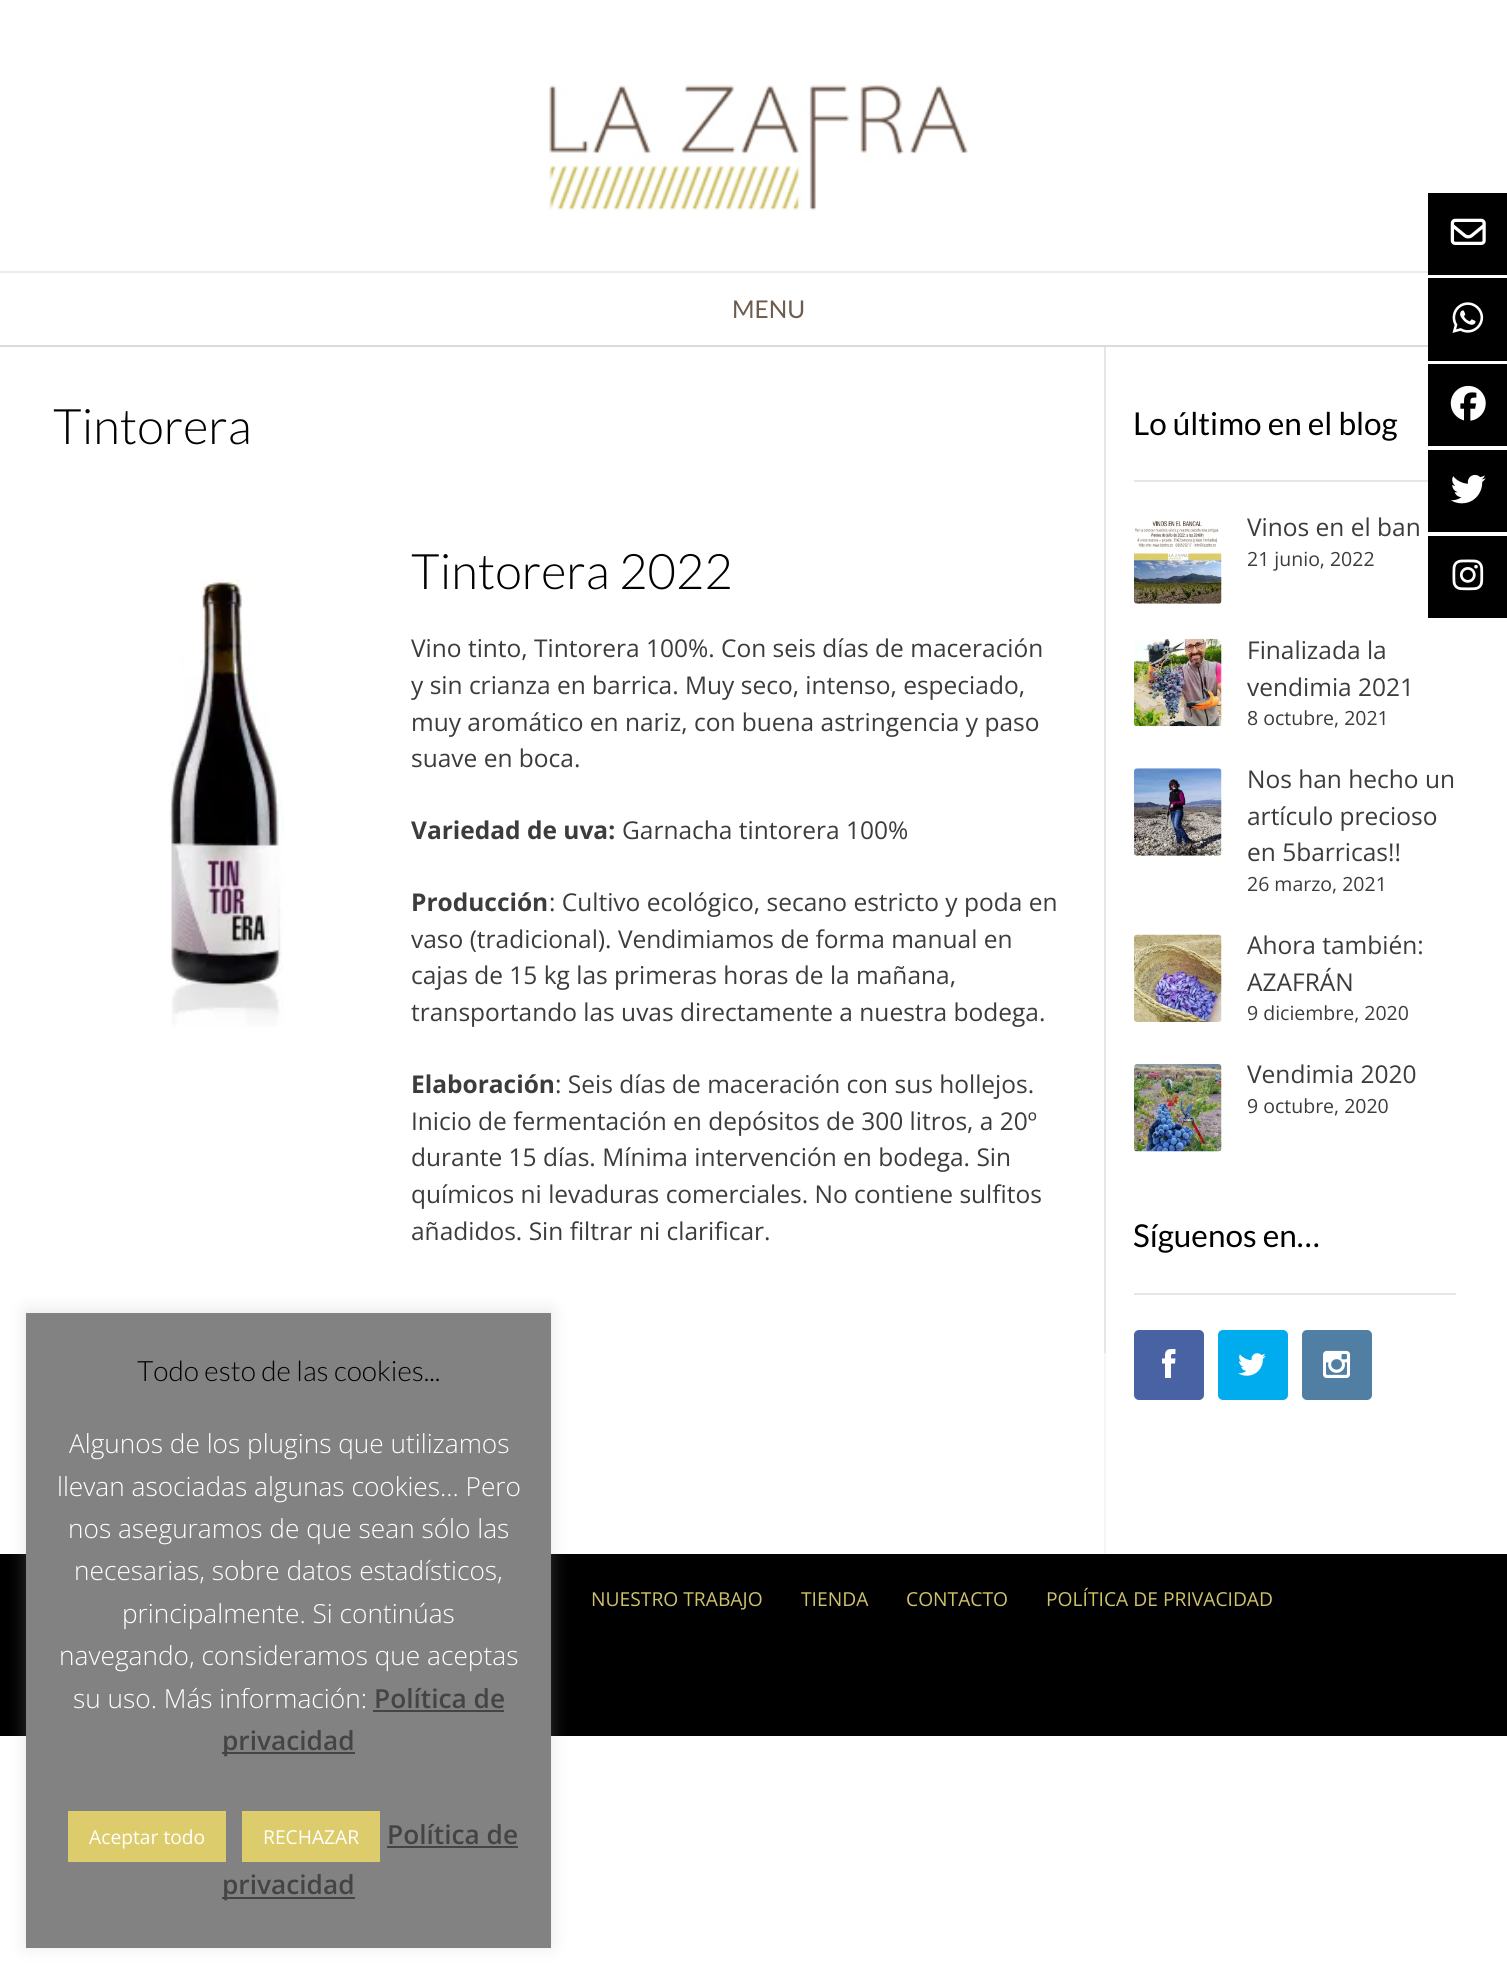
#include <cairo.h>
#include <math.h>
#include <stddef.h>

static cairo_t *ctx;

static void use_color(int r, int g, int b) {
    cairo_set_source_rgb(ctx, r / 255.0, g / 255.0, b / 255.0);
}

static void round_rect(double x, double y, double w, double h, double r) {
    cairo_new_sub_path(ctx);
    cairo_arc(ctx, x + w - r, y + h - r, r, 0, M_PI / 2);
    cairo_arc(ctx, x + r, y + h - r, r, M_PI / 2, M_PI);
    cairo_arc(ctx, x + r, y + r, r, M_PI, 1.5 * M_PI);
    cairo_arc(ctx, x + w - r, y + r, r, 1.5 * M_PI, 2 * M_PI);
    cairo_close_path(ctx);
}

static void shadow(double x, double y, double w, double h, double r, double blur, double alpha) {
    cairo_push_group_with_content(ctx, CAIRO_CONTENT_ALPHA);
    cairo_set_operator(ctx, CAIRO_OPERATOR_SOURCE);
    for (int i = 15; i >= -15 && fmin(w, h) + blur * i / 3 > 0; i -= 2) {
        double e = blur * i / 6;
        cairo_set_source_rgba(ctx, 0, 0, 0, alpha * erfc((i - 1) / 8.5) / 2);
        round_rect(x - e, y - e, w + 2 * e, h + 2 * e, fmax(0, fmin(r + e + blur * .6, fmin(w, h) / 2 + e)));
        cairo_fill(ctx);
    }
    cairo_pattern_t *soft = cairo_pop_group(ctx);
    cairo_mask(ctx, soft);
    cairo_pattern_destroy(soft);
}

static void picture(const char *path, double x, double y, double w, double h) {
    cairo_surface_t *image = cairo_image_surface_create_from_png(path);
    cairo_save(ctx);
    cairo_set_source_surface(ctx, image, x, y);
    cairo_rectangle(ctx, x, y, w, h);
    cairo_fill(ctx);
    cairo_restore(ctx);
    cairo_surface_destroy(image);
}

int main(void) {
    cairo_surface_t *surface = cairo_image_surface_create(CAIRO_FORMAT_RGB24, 1507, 1973);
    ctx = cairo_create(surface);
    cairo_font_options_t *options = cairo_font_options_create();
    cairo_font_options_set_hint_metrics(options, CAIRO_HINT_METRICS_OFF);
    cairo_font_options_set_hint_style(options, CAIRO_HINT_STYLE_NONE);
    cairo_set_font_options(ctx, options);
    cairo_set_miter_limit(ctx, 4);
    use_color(255, 255, 255);
    cairo_paint(ctx);
    use_color(219, 219, 219);
    cairo_rectangle(ctx, 0, 345, 1428, 2);
    cairo_fill(ctx);
    picture("img1.png", 549, 85, 420, 126);
    use_color(235, 235, 235);
    cairo_rectangle(ctx, 0, 271, 1428, 2);
    cairo_fill(ctx);
    cairo_select_font_face(ctx, "Lato", CAIRO_FONT_SLANT_NORMAL, CAIRO_FONT_WEIGHT_NORMAL);
    cairo_set_font_size(ctx, 24.5);
    use_color(110, 92, 78);
    cairo_move_to(ctx, 732, 318);
    cairo_show_text(ctx, "MENU");
    use_color(230, 230, 230);
    cairo_rectangle(ctx, 1104, 347, 2, 1006);
    cairo_fill(ctx);
    cairo_select_font_face(ctx, "Lato Light", CAIRO_FONT_SLANT_NORMAL, CAIRO_FONT_WEIGHT_NORMAL);
    cairo_set_font_size(ctx, 49);
    use_color(0, 0, 0);
    cairo_move_to(ctx, 53, 444);
    cairo_show_text(ctx, "Tintorera");
    picture("img2.png", 169, 579, 115, 448);
    cairo_move_to(ctx, 411, 589);
    cairo_show_text(ctx, "Tintorera 2022");
    cairo_select_font_face(ctx, "Open Sans", CAIRO_FONT_SLANT_NORMAL, CAIRO_FONT_WEIGHT_NORMAL);
    cairo_set_font_size(ctx, 24.5);
    use_color(60, 60, 60);
    cairo_move_to(ctx, 411, 657);
    cairo_show_text(ctx, "Vino tinto, Tintorera 100%. Con seis días de maceración");
    cairo_move_to(ctx, 411, 694);
    cairo_show_text(ctx, "y sin crianza en barrica. Muy seco, intenso, especiado,");
    cairo_move_to(ctx, 411, 731);
    cairo_show_text(ctx, "muy aromático en nariz, con buena astringencia y paso");
    cairo_move_to(ctx, 411, 767);
    cairo_show_text(ctx, "suave en boca.");
    cairo_select_font_face(ctx, "Open Sans", CAIRO_FONT_SLANT_NORMAL, CAIRO_FONT_WEIGHT_BOLD);
    cairo_move_to(ctx, 411, 839);
    cairo_show_text(ctx, "Variedad de uva:");
    cairo_select_font_face(ctx, "Open Sans", CAIRO_FONT_SLANT_NORMAL, CAIRO_FONT_WEIGHT_NORMAL);
    cairo_move_to(ctx, 622, 839);
    cairo_show_text(ctx, "Garnacha tintorera 100%");
    cairo_select_font_face(ctx, "Open Sans", CAIRO_FONT_SLANT_NORMAL, CAIRO_FONT_WEIGHT_BOLD);
    cairo_move_to(ctx, 411, 911);
    cairo_show_text(ctx, "Producción");
    cairo_select_font_face(ctx, "Open Sans", CAIRO_FONT_SLANT_NORMAL, CAIRO_FONT_WEIGHT_NORMAL);
    cairo_move_to(ctx, 549, 911);
    cairo_show_text(ctx, ": Cultivo ecológico, secano estricto y poda en");
    cairo_move_to(ctx, 411, 948);
    cairo_show_text(ctx, "vaso (tradicional). Vendimiamos de forma manual en");
    cairo_move_to(ctx, 411, 984);
    cairo_show_text(ctx, "cajas de 15 kg las primeras horas de la mañana,");
    cairo_move_to(ctx, 411, 1021);
    cairo_show_text(ctx, "transportando las uvas directamente a nuestra bodega.");
    cairo_select_font_face(ctx, "Open Sans", CAIRO_FONT_SLANT_NORMAL, CAIRO_FONT_WEIGHT_BOLD);
    cairo_move_to(ctx, 411, 1093);
    cairo_show_text(ctx, "Elaboración");
    cairo_select_font_face(ctx, "Open Sans", CAIRO_FONT_SLANT_NORMAL, CAIRO_FONT_WEIGHT_NORMAL);
    cairo_move_to(ctx, 555, 1093);
    cairo_show_text(ctx, ": Seis días de maceración con sus hollejos.");
    cairo_move_to(ctx, 411, 1130);
    cairo_show_text(ctx, "Inicio de fermentación en depósitos de 300 litros, a 20º");
    cairo_move_to(ctx, 411, 1166);
    cairo_show_text(ctx, "durante 15 días. Mínima intervención en bodega. Sin");
    cairo_move_to(ctx, 411, 1203);
    cairo_show_text(ctx, "químicos ni levaduras comerciales. No contiene sulfitos");
    cairo_move_to(ctx, 411, 1240);
    cairo_show_text(ctx, "añadidos. Sin filtrar ni clarificar.");
    use_color(245, 245, 245);
    cairo_rectangle(ctx, 1104, 1353, 2, 201);
    cairo_fill(ctx);
    use_color(230, 230, 230);
    cairo_rectangle(ctx, 1134, 480, 294, 2);
    cairo_fill(ctx);
    cairo_select_font_face(ctx, "Lato", CAIRO_FONT_SLANT_NORMAL, CAIRO_FONT_WEIGHT_NORMAL);
    cairo_set_font_size(ctx, 31.5);
    use_color(0, 0, 0);
    cairo_move_to(ctx, 1133, 435);
    cairo_show_text(ctx, "Lo último en el blog");
    picture("img3.png", 1134, 521, 88, 83);
    cairo_select_font_face(ctx, "Open Sans", CAIRO_FONT_SLANT_NORMAL, CAIRO_FONT_WEIGHT_NORMAL);
    cairo_set_font_size(ctx, 24.5);
    use_color(60, 60, 60);
    cairo_move_to(ctx, 1247, 536);
    cairo_show_text(ctx, "Vinos en el ban");
    cairo_set_font_size(ctx, 19.5);
    cairo_move_to(ctx, 1247, 566);
    cairo_show_text(ctx, "21 junio, 2022");
    picture("img4.png", 1134, 638, 88, 89);
    cairo_set_font_size(ctx, 24.5);
    cairo_move_to(ctx, 1247, 659);
    cairo_show_text(ctx, "Finalizada la");
    cairo_move_to(ctx, 1247, 696);
    cairo_show_text(ctx, "vendimia 2021");
    cairo_set_font_size(ctx, 19.5);
    cairo_move_to(ctx, 1247, 725);
    cairo_show_text(ctx, "8 octubre, 2021");
    picture("img5.png", 1134, 768, 88, 88);
    cairo_set_font_size(ctx, 24.5);
    cairo_move_to(ctx, 1247, 788);
    cairo_show_text(ctx, "Nos han hecho un");
    cairo_move_to(ctx, 1247, 825);
    cairo_show_text(ctx, "artículo precioso");
    cairo_move_to(ctx, 1247, 861);
    cairo_show_text(ctx, "en 5barricas!!");
    cairo_set_font_size(ctx, 19.5);
    cairo_move_to(ctx, 1247, 891);
    cairo_show_text(ctx, "26 marzo, 2021");
    picture("img6.png", 1134, 934, 88, 88);
    cairo_set_font_size(ctx, 24.5);
    cairo_move_to(ctx, 1247, 954);
    cairo_show_text(ctx, "Ahora también:");
    cairo_move_to(ctx, 1247, 991);
    cairo_show_text(ctx, "AZAFRÁN");
    cairo_set_font_size(ctx, 19.5);
    cairo_move_to(ctx, 1247, 1020);
    cairo_show_text(ctx, "9 diciembre, 2020");
    picture("img7.png", 1134, 1064, 88, 88);
    cairo_set_font_size(ctx, 24.5);
    cairo_move_to(ctx, 1247, 1083);
    cairo_show_text(ctx, "Vendimia 2020");
    cairo_set_font_size(ctx, 19.5);
    cairo_move_to(ctx, 1247, 1113);
    cairo_show_text(ctx, "9 octubre, 2020");
    use_color(230, 230, 230);
    cairo_rectangle(ctx, 1134, 1293, 322, 2);
    cairo_fill(ctx);
    cairo_select_font_face(ctx, "Lato", CAIRO_FONT_SLANT_NORMAL, CAIRO_FONT_WEIGHT_NORMAL);
    cairo_set_font_size(ctx, 31.5);
    use_color(0, 0, 0);
    cairo_move_to(ctx, 1133, 1247);
    cairo_show_text(ctx, "Síguenos en…");
    use_color(72, 98, 163);
    round_rect(1134, 1330, 70, 70, 5);
    cairo_fill(ctx);
    picture("img8.png", 1162, 1349, 14, 29);
    use_color(0, 172, 238);
    round_rect(1218, 1330, 70, 70, 5);
    cairo_fill(ctx);
    picture("img9.png", 1238, 1353, 28, 23);
    use_color(81, 127, 164);
    round_rect(1302, 1330, 70, 70, 5);
    cairo_fill(ctx);
    picture("img10.png", 1323, 1350, 28, 28);
    use_color(0, 0, 0);
    cairo_rectangle(ctx, 0, 1554, 1507, 182);
    cairo_fill(ctx);
    cairo_select_font_face(ctx, "Open Sans", CAIRO_FONT_SLANT_NORMAL, CAIRO_FONT_WEIGHT_NORMAL);
    cairo_set_font_size(ctx, 19.25);
    use_color(206, 194, 107);
    cairo_move_to(ctx, 591, 1606);
    cairo_show_text(ctx, "NUESTRO TRABAJO");
    cairo_move_to(ctx, 801, 1606);
    cairo_show_text(ctx, "TIENDA");
    cairo_move_to(ctx, 906, 1606);
    cairo_show_text(ctx, "CONTACTO");
    cairo_move_to(ctx, 1046, 1606);
    cairo_show_text(ctx, "POLÍTICA DE PRIVACIDAD");
    use_color(0, 0, 0);
    cairo_rectangle(ctx, 1428, 193, 79, 82);
    cairo_fill(ctx);
    picture("img11.png", 1450, 218, 36, 27);
    cairo_rectangle(ctx, 1428, 278, 79, 83);
    cairo_fill(ctx);
    picture("img12.png", 1452, 302, 32, 31);
    cairo_rectangle(ctx, 1428, 364, 79, 82);
    cairo_fill(ctx);
    picture("img13.png", 1450, 385, 36, 36);
    cairo_rectangle(ctx, 1428, 450, 79, 82);
    cairo_fill(ctx);
    picture("img14.png", 1451, 474, 35, 30);
    cairo_rectangle(ctx, 1428, 536, 79, 82);
    cairo_fill(ctx);
    picture("img15.png", 1452, 559, 32, 32);
    use_color(172, 171, 171);
    shadow(26, 1311, 525, 635, 0, 9, 0.3);
    use_color(130, 130, 130);
    cairo_rectangle(ctx, 26, 1313, 525, 635);
    cairo_fill(ctx);
    cairo_select_font_face(ctx, "Lato Light", CAIRO_FONT_SLANT_NORMAL, CAIRO_FONT_WEIGHT_NORMAL);
    cairo_set_font_size(ctx, 28);
    use_color(0, 0, 0);
    cairo_move_to(ctx, 137, 1381);
    cairo_show_text(ctx, "Todo esto de las cookies...");
    cairo_select_font_face(ctx, "Open Sans Light", CAIRO_FONT_SLANT_NORMAL, CAIRO_FONT_WEIGHT_NORMAL);
    cairo_set_font_size(ctx, 26.25);
    use_color(255, 255, 255);
    cairo_move_to(ctx, 69, 1453);
    cairo_show_text(ctx, "Algunos de los plugins que utilizamos");
    cairo_move_to(ctx, 57, 1496);
    cairo_show_text(ctx, "llevan asociadas algunas cookies... Pero");
    cairo_move_to(ctx, 68, 1538);
    cairo_show_text(ctx, "nos aseguramos de que sean sólo las");
    cairo_move_to(ctx, 74, 1580);
    cairo_show_text(ctx, "necesarias, sobre datos estadísticos,");
    cairo_move_to(ctx, 122, 1623);
    cairo_show_text(ctx, "principalmente. Si continúas");
    cairo_move_to(ctx, 59, 1665);
    cairo_show_text(ctx, "navegando, consideramos que aceptas");
    cairo_move_to(ctx, 73, 1708);
    cairo_show_text(ctx, "su uso. Más información:");
    cairo_select_font_face(ctx, "Open Sans SemiBold", CAIRO_FONT_SLANT_NORMAL, CAIRO_FONT_WEIGHT_NORMAL);
    use_color(68, 68, 68);
    cairo_move_to(ctx, 374, 1708);
    cairo_show_text(ctx, "Política de");
    cairo_rectangle(ctx, 373, 1710, 131, 2);
    cairo_fill(ctx);
    cairo_rectangle(ctx, 222, 1752, 133, 2);
    cairo_fill(ctx);
    cairo_move_to(ctx, 222, 1750);
    cairo_show_text(ctx, "privacidad");
    use_color(221, 204, 107);
    cairo_rectangle(ctx, 68, 1811, 158, 51);
    cairo_fill(ctx);
    cairo_select_font_face(ctx, "Open Sans", CAIRO_FONT_SLANT_NORMAL, CAIRO_FONT_WEIGHT_NORMAL);
    cairo_set_font_size(ctx, 19.25);
    use_color(255, 255, 255);
    cairo_move_to(ctx, 89, 1844);
    cairo_show_text(ctx, "Aceptar todo");
    use_color(221, 204, 107);
    cairo_rectangle(ctx, 242, 1811, 138, 51);
    cairo_fill(ctx);
    use_color(255, 255, 255);
    cairo_move_to(ctx, 263, 1844);
    cairo_show_text(ctx, "RECHAZAR");
    cairo_select_font_face(ctx, "Open Sans SemiBold", CAIRO_FONT_SLANT_NORMAL, CAIRO_FONT_WEIGHT_NORMAL);
    cairo_set_font_size(ctx, 26.25);
    use_color(68, 68, 68);
    cairo_move_to(ctx, 387, 1844);
    cairo_show_text(ctx, "Política de");
    cairo_rectangle(ctx, 387, 1846, 131, 2);
    cairo_fill(ctx);
    cairo_rectangle(ctx, 222, 1897, 133, 2);
    cairo_fill(ctx);
    cairo_move_to(ctx, 222, 1894);
    cairo_show_text(ctx, "privacidad");
    cairo_surface_write_to_png(surface, "result.png");
    cairo_font_options_destroy(options);
    cairo_destroy(ctx);
    cairo_surface_destroy(surface);
    return 0;
}
